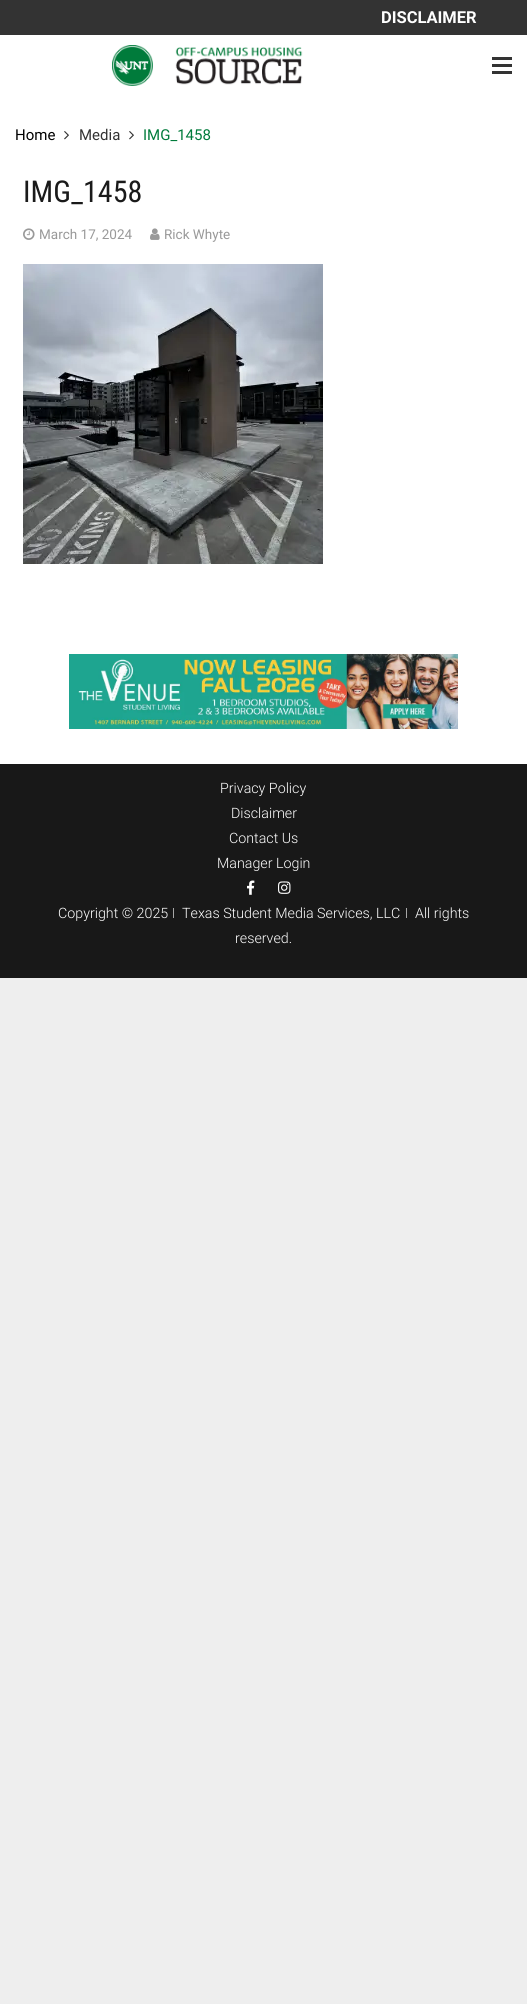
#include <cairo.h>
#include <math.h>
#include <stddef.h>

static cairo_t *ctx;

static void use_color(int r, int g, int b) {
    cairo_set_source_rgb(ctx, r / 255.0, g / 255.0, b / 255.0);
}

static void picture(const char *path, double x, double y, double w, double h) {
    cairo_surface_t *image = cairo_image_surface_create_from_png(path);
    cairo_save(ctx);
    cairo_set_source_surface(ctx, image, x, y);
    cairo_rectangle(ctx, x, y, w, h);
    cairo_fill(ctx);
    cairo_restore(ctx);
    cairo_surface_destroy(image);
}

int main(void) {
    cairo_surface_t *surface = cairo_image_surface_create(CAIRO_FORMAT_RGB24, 527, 2004);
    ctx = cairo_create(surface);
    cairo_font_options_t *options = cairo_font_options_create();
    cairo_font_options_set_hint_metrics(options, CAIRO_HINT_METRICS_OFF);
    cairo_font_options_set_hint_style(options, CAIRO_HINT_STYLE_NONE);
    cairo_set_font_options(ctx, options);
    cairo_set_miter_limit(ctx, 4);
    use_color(238, 238, 238);
    cairo_paint(ctx);
    use_color(255, 255, 255);
    cairo_rectangle(ctx, 0, 35, 527, 729);
    cairo_fill(ctx);
    use_color(51, 51, 51);
    cairo_rectangle(ctx, 0, 0, 527, 35);
    cairo_fill(ctx);
    cairo_select_font_face(ctx, "Roboto", CAIRO_FONT_SLANT_NORMAL, CAIRO_FONT_WEIGHT_BOLD);
    cairo_set_font_size(ctx, 16.5);
    use_color(255, 255, 255);
    cairo_move_to(ctx, 381, 23);
    cairo_show_text(ctx, "DISCLAIMER");
    picture("img1.png", 112, 45, 41, 41);
    picture("img2.png", 175, 47, 128, 38);
    use_color(51, 51, 51);
    cairo_rectangle(ctx, 492, 64, 20, 3);
    cairo_fill(ctx);
    cairo_rectangle(ctx, 492, 57, 20, 3);
    cairo_fill(ctx);
    cairo_rectangle(ctx, 492, 71, 20, 3);
    cairo_fill(ctx);
    cairo_select_font_face(ctx, "Roboto", CAIRO_FONT_SLANT_NORMAL, CAIRO_FONT_WEIGHT_NORMAL);
    cairo_set_font_size(ctx, 15);
    use_color(0, 0, 0);
    cairo_move_to(ctx, 15, 140);
    cairo_show_text(ctx, "Home");
    picture("img3.png", 64, 131, 5, 9);
    use_color(51, 51, 51);
    cairo_move_to(ctx, 79, 140);
    cairo_show_text(ctx, "Media");
    picture("img3.png", 129, 131, 5, 9);
    use_color(0, 123, 59);
    cairo_move_to(ctx, 143, 140);
    cairo_show_text(ctx, "IMG_1458");
    cairo_select_font_face(ctx, "Roboto Condensed", CAIRO_FONT_SLANT_NORMAL, CAIRO_FONT_WEIGHT_NORMAL);
    cairo_set_font_size(ctx, 30);
    use_color(26, 26, 26);
    cairo_move_to(ctx, 23, 202);
    cairo_show_text(ctx, "IMG_1458");
    picture("img4.png", 23, 228, 12, 12);
    cairo_select_font_face(ctx, "Roboto", CAIRO_FONT_SLANT_NORMAL, CAIRO_FONT_WEIGHT_NORMAL);
    cairo_set_font_size(ctx, 13.5);
    use_color(153, 153, 153);
    cairo_move_to(ctx, 39, 239);
    cairo_show_text(ctx, "March 17, 2024");
    picture("img5.png", 150, 228, 10, 12);
    cairo_move_to(ctx, 164, 239);
    cairo_show_text(ctx, "Rick Whyte");
    picture("img6.png", 23, 264, 300, 300);
    picture("img7.png", 69, 654, 389, 75);
    use_color(24, 24, 24);
    cairo_rectangle(ctx, 0, 764, 527, 214);
    cairo_fill(ctx);
    cairo_select_font_face(ctx, "Roboto Light", CAIRO_FONT_SLANT_NORMAL, CAIRO_FONT_WEIGHT_NORMAL);
    cairo_set_font_size(ctx, 14.25);
    use_color(255, 255, 255);
    cairo_move_to(ctx, 220, 793);
    cairo_show_text(ctx, "Privacy Policy");
    cairo_move_to(ctx, 231, 818);
    cairo_show_text(ctx, "Disclaimer");
    cairo_move_to(ctx, 229, 843);
    cairo_show_text(ctx, "Contact Us");
    cairo_move_to(ctx, 217, 868);
    cairo_show_text(ctx, "Manager Login");
    picture("img8.png", 247, 880, 8, 15);
    picture("img9.png", 278, 881, 13, 13);
    cairo_move_to(ctx, 58, 918);
    cairo_show_text(ctx, "Copyright © 2025");
    use_color(167, 167, 167);
    cairo_rectangle(ctx, 173, 908, 1, 10);
    cairo_fill(ctx);
    use_color(255, 255, 255);
    cairo_move_to(ctx, 182, 918);
    cairo_show_text(ctx, "Texas Student Media Services, LLC");
    use_color(167, 167, 167);
    cairo_rectangle(ctx, 406, 908, 1, 10);
    cairo_fill(ctx);
    use_color(255, 255, 255);
    cairo_move_to(ctx, 415, 918);
    cairo_show_text(ctx, "All rights");
    cairo_move_to(ctx, 235, 943);
    cairo_show_text(ctx, "reserved.");
    cairo_surface_write_to_png(surface, "result.png");
    cairo_font_options_destroy(options);
    cairo_destroy(ctx);
    cairo_surface_destroy(surface);
    return 0;
}
